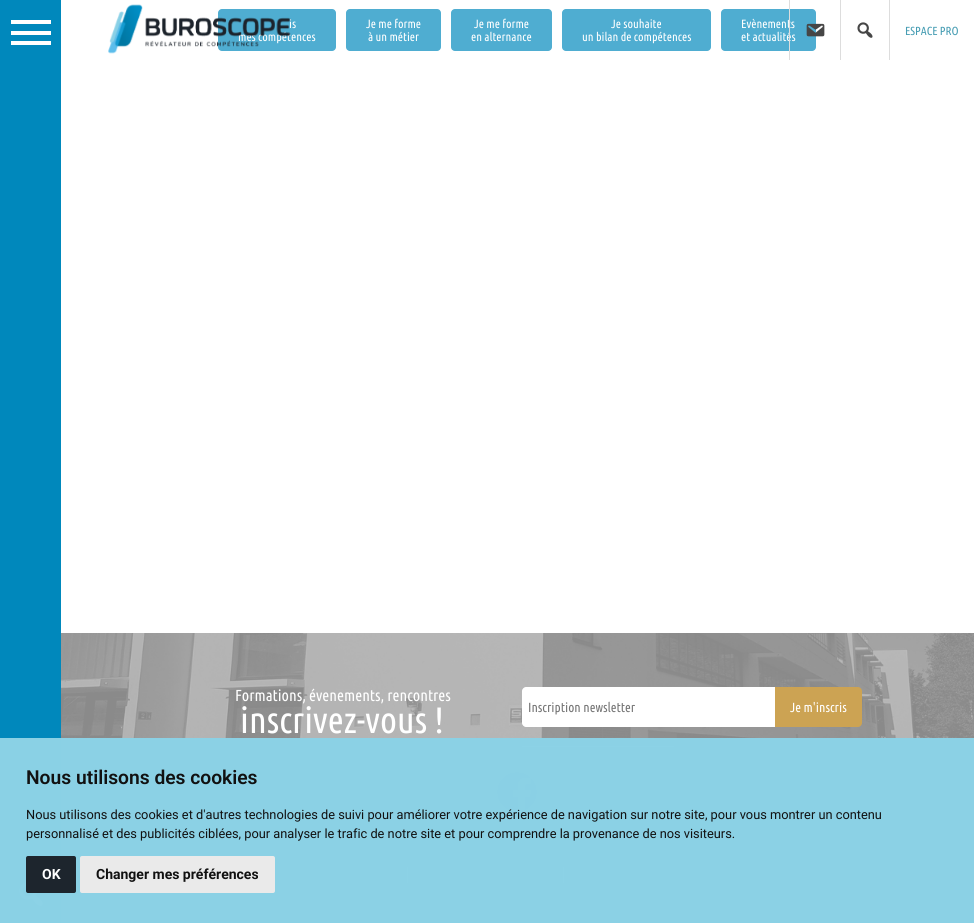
#include <cairo.h>
#include <math.h>
#include <stddef.h>

static cairo_t *ctx;

static void use_color(int r, int g, int b) {
    cairo_set_source_rgb(ctx, r / 255.0, g / 255.0, b / 255.0);
}

static void round_rect(double x, double y, double w, double h, double r) {
    cairo_new_sub_path(ctx);
    cairo_arc(ctx, x + w - r, y + h - r, r, 0, M_PI / 2);
    cairo_arc(ctx, x + r, y + h - r, r, M_PI / 2, M_PI);
    cairo_arc(ctx, x + r, y + r, r, M_PI, 1.5 * M_PI);
    cairo_arc(ctx, x + w - r, y + r, r, 1.5 * M_PI, 2 * M_PI);
    cairo_close_path(ctx);
}

static void picture(const char *path, double x, double y, double w, double h) {
    cairo_surface_t *image = cairo_image_surface_create_from_png(path);
    cairo_save(ctx);
    cairo_set_source_surface(ctx, image, x, y);
    cairo_rectangle(ctx, x, y, w, h);
    cairo_fill(ctx);
    cairo_restore(ctx);
    cairo_surface_destroy(image);
}

int main(void) {
    cairo_surface_t *surface = cairo_image_surface_create(CAIRO_FORMAT_RGB24, 974, 923);
    ctx = cairo_create(surface);
    cairo_font_options_t *options = cairo_font_options_create();
    cairo_font_options_set_hint_metrics(options, CAIRO_HINT_METRICS_OFF);
    cairo_font_options_set_hint_style(options, CAIRO_HINT_STYLE_NONE);
    cairo_set_font_options(ctx, options);
    cairo_set_miter_limit(ctx, 4);
    use_color(255, 255, 255);
    cairo_paint(ctx);
    use_color(0, 136, 188);
    cairo_rectangle(ctx, 0, 0, 61, 923);
    cairo_fill(ctx);
    use_color(255, 255, 255);
    cairo_rectangle(ctx, 11, 20, 40, 4);
    cairo_fill(ctx);
    cairo_rectangle(ctx, 11, 41, 40, 4);
    cairo_fill(ctx);
    cairo_rectangle(ctx, 11, 31, 40, 4);
    cairo_fill(ctx);
    picture("img1.png", 19, 882, 24, 24);
    use_color(79, 173, 209);
    round_rect(218, 9, 118, 42, 4);
    cairo_fill(ctx);
    cairo_select_font_face(ctx, "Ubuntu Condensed", CAIRO_FONT_SLANT_NORMAL, CAIRO_FONT_WEIGHT_NORMAL);
    cairo_set_font_size(ctx, 12);
    use_color(255, 255, 255);
    cairo_move_to(ctx, 289, 28);
    cairo_show_text(ctx, "is");
    cairo_move_to(ctx, 238, 41);
    cairo_show_text(ctx, "mes compétences");
    picture("img2.png", 108, 4, 183, 50);
    use_color(79, 173, 209);
    round_rect(346, 9, 95, 42, 4);
    cairo_fill(ctx);
    use_color(255, 255, 255);
    cairo_move_to(ctx, 366, 28);
    cairo_show_text(ctx, "Je me forme");
    cairo_move_to(ctx, 368, 41);
    cairo_show_text(ctx, "à un métier");
    use_color(79, 173, 209);
    round_rect(451, 9, 101, 42, 4);
    cairo_fill(ctx);
    use_color(255, 255, 255);
    cairo_move_to(ctx, 474, 28);
    cairo_show_text(ctx, "Je me forme");
    cairo_move_to(ctx, 471, 41);
    cairo_show_text(ctx, "en alternance");
    use_color(79, 173, 209);
    round_rect(562, 9, 149, 42, 4);
    cairo_fill(ctx);
    use_color(255, 255, 255);
    cairo_move_to(ctx, 611, 28);
    cairo_show_text(ctx, "Je souhaite");
    cairo_move_to(ctx, 582, 41);
    cairo_show_text(ctx, "un bilan de compétences");
    use_color(79, 173, 209);
    round_rect(721, 9, 95, 42, 4);
    cairo_fill(ctx);
    use_color(255, 255, 255);
    cairo_move_to(ctx, 741, 28);
    cairo_show_text(ctx, "Evènements");
    cairo_move_to(ctx, 741, 41);
    cairo_show_text(ctx, "et actualités");
    use_color(221, 221, 221);
    cairo_rectangle(ctx, 789, 0, 1, 60);
    cairo_fill(ctx);
    picture("img3.png", 806, 23, 19, 14);
    cairo_rectangle(ctx, 889, 0, 1, 60);
    cairo_fill(ctx);
    cairo_rectangle(ctx, 840, 0, 1, 60);
    cairo_fill(ctx);
    picture("img4.png", 857, 22, 16, 16);
    cairo_set_font_size(ctx, 11.75);
    use_color(71, 157, 179);
    cairo_move_to(ctx, 905, 35);
    cairo_show_text(ctx, "ESPACE PRO");
    use_color(172, 172, 172);
    cairo_rectangle(ctx, 61, 633, 913, 219);
    cairo_fill(ctx);
    picture("img5.png", 61, 633, 913, 219);
    cairo_set_font_size(ctx, 16);
    use_color(255, 255, 255);
    cairo_move_to(ctx, 235, 701);
    cairo_show_text(ctx, "Formations, évenements, rencontres");
    cairo_set_font_size(ctx, 36.75);
    cairo_move_to(ctx, 240, 733);
    cairo_show_text(ctx, "inscrivez-vous !");
    cairo_new_path(ctx);
    cairo_move_to(ctx, 526, 687);
    cairo_line_to(ctx, 775, 687);
    cairo_line_to(ctx, 775, 727);
    cairo_line_to(ctx, 526, 727);
    cairo_curve_to(ctx, 524, 727, 522, 725, 522, 723);
    cairo_line_to(ctx, 522, 691);
    cairo_curve_to(ctx, 522, 689, 524, 687, 526, 687);
    cairo_close_path(ctx);
    cairo_fill(ctx);
    cairo_set_font_size(ctx, 13.25);
    use_color(117, 117, 117);
    cairo_move_to(ctx, 528, 712);
    cairo_show_text(ctx, "Inscription newsletter");
    use_color(204, 163, 83);
    cairo_new_path(ctx);
    cairo_move_to(ctx, 775, 687);
    cairo_line_to(ctx, 858, 687);
    cairo_curve_to(ctx, 860, 687, 862, 689, 862, 691);
    cairo_line_to(ctx, 862, 723);
    cairo_curve_to(ctx, 862, 725, 860, 727, 858, 727);
    cairo_line_to(ctx, 775, 727);
    cairo_close_path(ctx);
    cairo_fill(ctx);
    use_color(255, 255, 255);
    cairo_move_to(ctx, 790, 712);
    cairo_show_text(ctx, "Je m'inscris");
    cairo_rectangle(ctx, 522, 746, 152, 1);
    cairo_fill(ctx);
    picture("img6.png", 497, 772, 40, 40);
    use_color(70, 70, 70);
    cairo_rectangle(ctx, 61, 852, 913, 71);
    cairo_fill(ctx);
    use_color(195, 195, 195);
    cairo_rectangle(ctx, 407, 867, 1, 16);
    cairo_fill(ctx);
    cairo_rectangle(ctx, 563, 867, 1, 16);
    cairo_fill(ctx);
    cairo_set_source_rgba(ctx, 0.545, 0.824, 0.902, 0.99);
    cairo_rectangle(ctx, 0, 738, 974, 185);
    cairo_fill(ctx);
    cairo_select_font_face(ctx, "Roboto SemiBold", CAIRO_FONT_SLANT_NORMAL, CAIRO_FONT_WEIGHT_NORMAL);
    cairo_set_font_size(ctx, 19.25);
    use_color(17, 17, 17);
    cairo_move_to(ctx, 26, 784);
    cairo_show_text(ctx, "Nous utilisons des cookies");
    cairo_select_font_face(ctx, "Roboto", CAIRO_FONT_SLANT_NORMAL, CAIRO_FONT_WEIGHT_NORMAL);
    cairo_set_font_size(ctx, 12.8);
    cairo_move_to(ctx, 26, 819);
    cairo_show_text(ctx, "Nous utilisons des cookies et d'autres technologies de suivi pour améliorer votre expérience de navigation sur notre site, pour vous montrer un contenu");
    cairo_move_to(ctx, 26, 838);
    cairo_show_text(ctx, "personnalisé et des publicités ciblées, pour analyser le trafic de notre site et pour comprendre la provenance de nos visiteurs.");
    use_color(29, 37, 45);
    round_rect(26, 856, 50, 37, 2);
    cairo_fill(ctx);
    cairo_select_font_face(ctx, "Roboto", CAIRO_FONT_SLANT_NORMAL, CAIRO_FONT_WEIGHT_BOLD);
    cairo_set_font_size(ctx, 14);
    use_color(255, 255, 255);
    cairo_move_to(ctx, 42, 879);
    cairo_show_text(ctx, "OK");
    use_color(234, 234, 234);
    round_rect(80, 856, 195, 37, 2);
    cairo_fill(ctx);
    use_color(17, 17, 17);
    cairo_move_to(ctx, 96, 879);
    cairo_show_text(ctx, "Changer mes préférences");
    cairo_surface_write_to_png(surface, "result.png");
    cairo_font_options_destroy(options);
    cairo_destroy(ctx);
    cairo_surface_destroy(surface);
    return 0;
}
